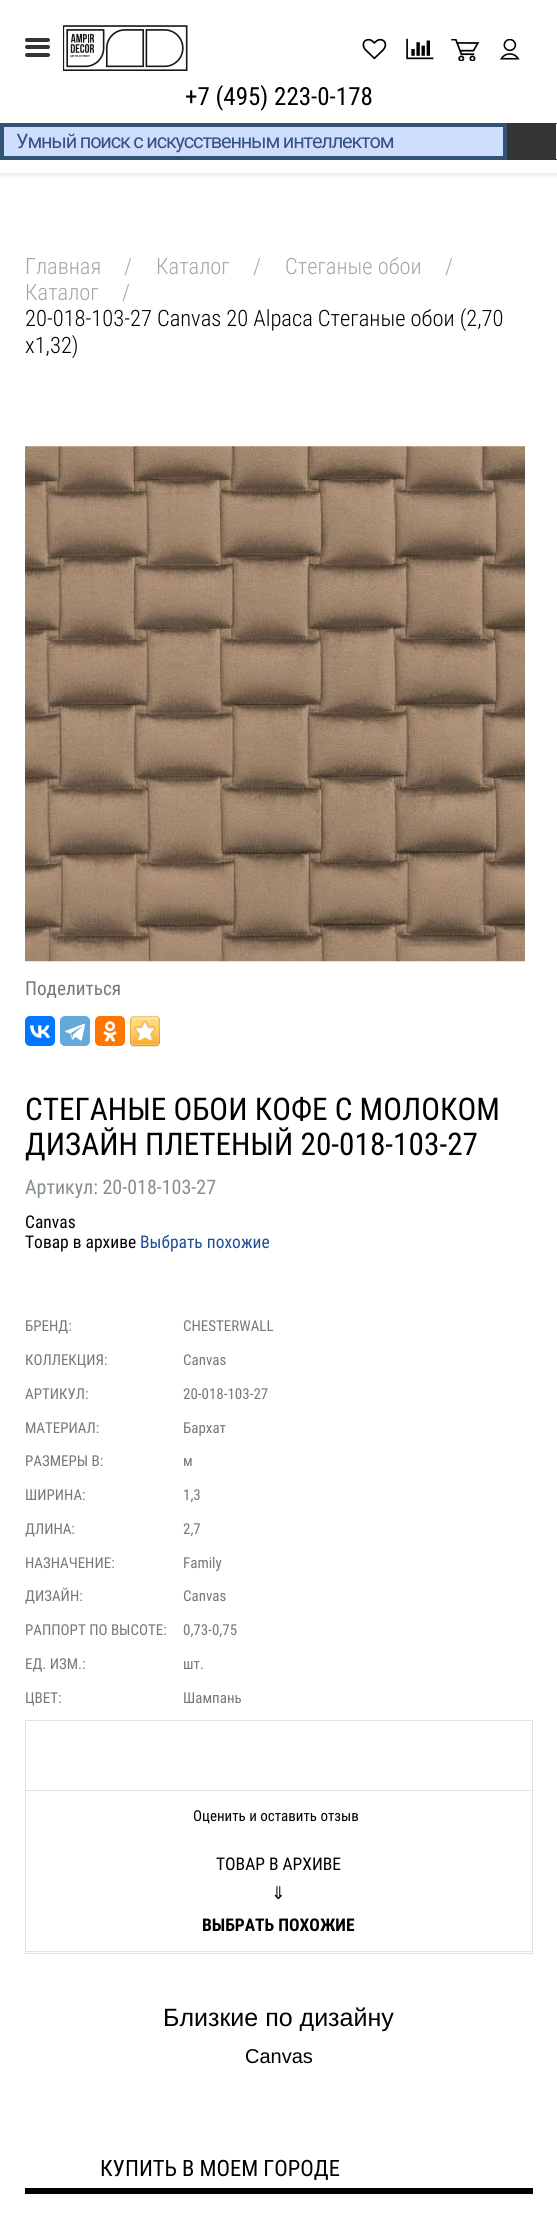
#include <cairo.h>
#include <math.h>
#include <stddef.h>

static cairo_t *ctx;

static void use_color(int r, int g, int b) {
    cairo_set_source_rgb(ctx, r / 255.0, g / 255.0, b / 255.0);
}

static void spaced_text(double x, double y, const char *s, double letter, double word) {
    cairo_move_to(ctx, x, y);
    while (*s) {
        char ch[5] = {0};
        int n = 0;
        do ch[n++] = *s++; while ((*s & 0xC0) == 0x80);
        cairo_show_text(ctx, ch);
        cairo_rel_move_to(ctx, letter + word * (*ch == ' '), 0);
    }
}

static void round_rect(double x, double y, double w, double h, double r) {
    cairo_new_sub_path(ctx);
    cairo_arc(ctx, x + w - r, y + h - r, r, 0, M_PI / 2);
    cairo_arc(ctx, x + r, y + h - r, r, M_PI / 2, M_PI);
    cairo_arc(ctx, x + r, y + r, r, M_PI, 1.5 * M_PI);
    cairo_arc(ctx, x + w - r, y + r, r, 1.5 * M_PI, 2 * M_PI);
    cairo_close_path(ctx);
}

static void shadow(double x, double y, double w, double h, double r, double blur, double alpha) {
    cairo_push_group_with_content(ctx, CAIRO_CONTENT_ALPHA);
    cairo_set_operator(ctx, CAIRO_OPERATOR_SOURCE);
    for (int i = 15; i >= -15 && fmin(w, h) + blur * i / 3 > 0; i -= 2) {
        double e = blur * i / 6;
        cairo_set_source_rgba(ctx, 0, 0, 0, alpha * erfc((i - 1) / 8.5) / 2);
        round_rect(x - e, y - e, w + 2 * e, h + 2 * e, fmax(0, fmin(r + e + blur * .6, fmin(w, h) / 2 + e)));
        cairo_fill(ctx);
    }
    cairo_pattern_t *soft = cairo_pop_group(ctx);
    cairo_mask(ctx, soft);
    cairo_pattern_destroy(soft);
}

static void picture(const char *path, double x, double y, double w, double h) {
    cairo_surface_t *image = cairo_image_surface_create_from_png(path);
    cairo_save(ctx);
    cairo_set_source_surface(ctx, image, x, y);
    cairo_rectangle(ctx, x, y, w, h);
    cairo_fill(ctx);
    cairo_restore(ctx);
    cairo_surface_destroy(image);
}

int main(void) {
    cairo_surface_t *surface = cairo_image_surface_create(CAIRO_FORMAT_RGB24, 557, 2228);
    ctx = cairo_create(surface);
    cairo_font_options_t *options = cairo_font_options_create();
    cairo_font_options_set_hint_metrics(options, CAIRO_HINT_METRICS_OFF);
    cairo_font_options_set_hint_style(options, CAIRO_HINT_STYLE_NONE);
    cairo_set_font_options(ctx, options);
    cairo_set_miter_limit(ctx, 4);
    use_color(255, 255, 255);
    cairo_paint(ctx);
    use_color(52, 52, 52);
    round_rect(25, 38, 25, 4, 2);
    cairo_fill(ctx);
    round_rect(25, 45, 25, 4, 2);
    cairo_fill(ctx);
    round_rect(25, 53, 25, 4, 2);
    cairo_fill(ctx);
    picture("img1.png", 63, 25, 125, 46);
    picture("img2.png", 362, 38, 25, 22);
    picture("img3.png", 406, 38, 28, 22);
    picture("img4.png", 451, 39, 29, 22);
    picture("img5.png", 500, 39, 20, 21);
    cairo_select_font_face(ctx, "Roboto Condensed", CAIRO_FONT_SLANT_NORMAL, CAIRO_FONT_WEIGHT_NORMAL);
    cairo_set_font_size(ctx, 25);
    use_color(0, 0, 0);
    cairo_move_to(ctx, 185, 105);
    cairo_show_text(ctx, "+7 (495) 223-0-178");
    use_color(0, 0, 0);
    shadow(0, 126, 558, 50, 0, 2, 0.08);
    use_color(255, 255, 255);
    cairo_rectangle(ctx, 0, 124, 557, 49);
    cairo_fill(ctx);
    cairo_rectangle(ctx, 0.5, 123.5, 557, 36);
    use_color(50, 83, 118);
    cairo_set_line_width(ctx, 1);
    cairo_stroke(ctx);
    use_color(206, 223, 253);
    cairo_rectangle(ctx, 2.5, 125.5, 502, 32);
    cairo_fill_preserve(ctx);
    use_color(50, 83, 118);
    cairo_set_line_width(ctx, 3);
    cairo_stroke(ctx);
    cairo_select_font_face(ctx, "Roboto", CAIRO_FONT_SLANT_NORMAL, CAIRO_FONT_WEIGHT_NORMAL);
    cairo_set_font_size(ctx, 20);
    use_color(55, 81, 130);
    spaced_text(16, 148, "Умный поиск с искусственным интеллектом", -1.2, 0);
    use_color(52, 52, 52);
    cairo_rectangle(ctx, 507, 123, 49, 37);
    cairo_fill(ctx);
    use_color(50, 83, 118);
    cairo_rectangle(ctx, 506, 123, 1, 37);
    cairo_fill(ctx);
    cairo_select_font_face(ctx, "Roboto Condensed Light", CAIRO_FONT_SLANT_NORMAL, CAIRO_FONT_WEIGHT_NORMAL);
    cairo_set_font_size(ctx, 22.5);
    use_color(166, 166, 166);
    cairo_move_to(ctx, 25, 274);
    cairo_show_text(ctx, "Главная");
    cairo_move_to(ctx, 124, 274);
    cairo_show_text(ctx, "/");
    cairo_move_to(ctx, 156, 274);
    cairo_show_text(ctx, "Каталог");
    cairo_move_to(ctx, 253, 274);
    cairo_show_text(ctx, "/");
    cairo_move_to(ctx, 285, 274);
    cairo_show_text(ctx, "Стеганые обои");
    cairo_move_to(ctx, 445, 274);
    cairo_show_text(ctx, "/");
    cairo_move_to(ctx, 25, 300);
    cairo_show_text(ctx, "Каталог");
    cairo_move_to(ctx, 122, 300);
    cairo_show_text(ctx, "/");
    use_color(0, 0, 0);
    cairo_move_to(ctx, 25, 326);
    cairo_show_text(ctx, "20-018-103-27 Canvas 20 Alpaca Стеганые обои (2,70");
    cairo_move_to(ctx, 25, 353);
    cairo_show_text(ctx, "х1,32)");
    picture("img6.png", 25, 446, 500, 516);
    cairo_select_font_face(ctx, "Roboto Condensed", CAIRO_FONT_SLANT_NORMAL, CAIRO_FONT_WEIGHT_NORMAL);
    cairo_set_font_size(ctx, 19.25);
    use_color(119, 119, 119);
    cairo_move_to(ctx, 25, 995);
    cairo_show_text(ctx, "Поделиться");
    use_color(0, 119, 255);
    round_rect(25, 1016, 30, 30, 5);
    cairo_fill(ctx);
    picture("img7.png", 30, 1025, 20, 13);
    use_color(100, 169, 220);
    round_rect(60, 1016, 30, 30, 5);
    cairo_fill(ctx);
    picture("img8.png", 65, 1023, 20, 18);
    use_color(255, 119, 0);
    round_rect(95, 1016, 30, 30, 5);
    cairo_fill(ctx);
    picture("img9.png", 103, 1021, 14, 21);
    picture("img10.png", 130, 1016, 30, 31);
    cairo_set_font_size(ctx, 31.25);
    use_color(0, 0, 0);
    cairo_move_to(ctx, 25, 1120);
    cairo_show_text(ctx, "СТЕГАНЫЕ ОБОИ КОФЕ С МОЛОКОМ");
    cairo_move_to(ctx, 25, 1155);
    cairo_show_text(ctx, "ДИЗАЙН ПЛЕТЕНЫЙ 20-018-103-27");
    cairo_set_font_size(ctx, 20);
    use_color(134, 142, 144);
    cairo_move_to(ctx, 25, 1194);
    cairo_show_text(ctx, "Артикул: 20-018-103-27");
    cairo_set_font_size(ctx, 17.5);
    use_color(0, 0, 0);
    cairo_move_to(ctx, 25, 1228);
    cairo_show_text(ctx, "Canvas");
    cairo_move_to(ctx, 25, 1248);
    cairo_show_text(ctx, "Товар в архиве");
    use_color(30, 78, 152);
    cairo_move_to(ctx, 140, 1248);
    cairo_show_text(ctx, "Выбрать похожие");
    cairo_set_font_size(ctx, 15);
    use_color(119, 119, 119);
    cairo_move_to(ctx, 25, 1331);
    cairo_show_text(ctx, "БРЕНД:");
    cairo_move_to(ctx, 183, 1331);
    cairo_show_text(ctx, "CHESTERWALL");
    cairo_move_to(ctx, 25, 1365);
    cairo_show_text(ctx, "КОЛЛЕКЦИЯ:");
    cairo_move_to(ctx, 183, 1365);
    cairo_show_text(ctx, "Canvas");
    cairo_move_to(ctx, 25, 1399);
    cairo_show_text(ctx, "АРТИКУЛ:");
    cairo_move_to(ctx, 183, 1399);
    cairo_show_text(ctx, "20-018-103-27");
    cairo_move_to(ctx, 25, 1433);
    cairo_show_text(ctx, "МАТЕРИАЛ:");
    cairo_move_to(ctx, 183, 1433);
    cairo_show_text(ctx, "Бархат");
    cairo_move_to(ctx, 25, 1466);
    cairo_show_text(ctx, "РАЗМЕРЫ В:");
    cairo_move_to(ctx, 183, 1466);
    cairo_show_text(ctx, "м");
    cairo_move_to(ctx, 25, 1500);
    cairo_show_text(ctx, "ШИРИНА:");
    cairo_move_to(ctx, 183, 1500);
    cairo_show_text(ctx, "1,3");
    cairo_move_to(ctx, 25, 1534);
    cairo_show_text(ctx, "ДЛИНА:");
    cairo_move_to(ctx, 183, 1534);
    cairo_show_text(ctx, "2,7");
    cairo_move_to(ctx, 25, 1568);
    cairo_show_text(ctx, "НАЗНАЧЕНИЕ:");
    cairo_move_to(ctx, 183, 1568);
    cairo_show_text(ctx, "Family");
    cairo_move_to(ctx, 25, 1601);
    cairo_show_text(ctx, "ДИЗАЙН:");
    cairo_move_to(ctx, 183, 1601);
    cairo_show_text(ctx, "Canvas");
    cairo_move_to(ctx, 25, 1635);
    cairo_show_text(ctx, "РАППОРТ ПО ВЫСОТЕ:");
    cairo_move_to(ctx, 183, 1635);
    cairo_show_text(ctx, "0,73-0,75");
    cairo_move_to(ctx, 25, 1669);
    cairo_show_text(ctx, "ЕД. ИЗМ.:");
    cairo_move_to(ctx, 183, 1669);
    cairo_show_text(ctx, "шт.");
    cairo_move_to(ctx, 25, 1703);
    cairo_show_text(ctx, "ЦВЕТ:");
    cairo_move_to(ctx, 183, 1703);
    cairo_show_text(ctx, "Шампань");
    cairo_rectangle(ctx, 25.5, 1720.5, 507, 233);
    use_color(225, 225, 225);
    cairo_set_line_width(ctx, 1);
    cairo_stroke(ctx);
    cairo_rectangle(ctx, 26, 1790, 505, 1);
    cairo_fill(ctx);
    use_color(0, 0, 0);
    cairo_move_to(ctx, 193, 1821);
    cairo_show_text(ctx, "Оценить и оставить отзыв");
    use_color(225, 225, 225);
    cairo_rectangle(ctx, 26, 1951, 505, 1);
    cairo_fill(ctx);
    cairo_set_font_size(ctx, 17.5);
    use_color(0, 0, 0);
    cairo_move_to(ctx, 216, 1870);
    cairo_show_text(ctx, "ТОВАР В АРХИВЕ");
    cairo_select_font_face(ctx, "DejaVu Sans", CAIRO_FONT_SLANT_NORMAL, CAIRO_FONT_WEIGHT_NORMAL);
    cairo_move_to(ctx, 271, 1899);
    cairo_show_text(ctx, "⇓");
    cairo_select_font_face(ctx, "Roboto Condensed", CAIRO_FONT_SLANT_NORMAL, CAIRO_FONT_WEIGHT_BOLD);
    cairo_move_to(ctx, 202, 1931);
    cairo_show_text(ctx, "ВЫБРАТЬ ПОХОЖИЕ");
    cairo_select_font_face(ctx, "Liberation Sans", CAIRO_FONT_SLANT_NORMAL, CAIRO_FONT_WEIGHT_NORMAL);
    cairo_set_font_size(ctx, 25);
    cairo_move_to(ctx, 163, 2026);
    cairo_show_text(ctx, "Близкие по дизайну");
    cairo_set_font_size(ctx, 20);
    cairo_move_to(ctx, 245, 2063);
    cairo_show_text(ctx, "Canvas");
    cairo_rectangle(ctx, 25, 2188, 508, 6);
    cairo_fill(ctx);
    cairo_select_font_face(ctx, "Roboto Condensed", CAIRO_FONT_SLANT_NORMAL, CAIRO_FONT_WEIGHT_NORMAL);
    cairo_set_font_size(ctx, 22.5);
    cairo_move_to(ctx, 100, 2176);
    cairo_show_text(ctx, "КУПИТЬ В МОЕМ ГОРОДЕ");
    cairo_surface_write_to_png(surface, "result.png");
    cairo_font_options_destroy(options);
    cairo_destroy(ctx);
    cairo_surface_destroy(surface);
    return 0;
}
